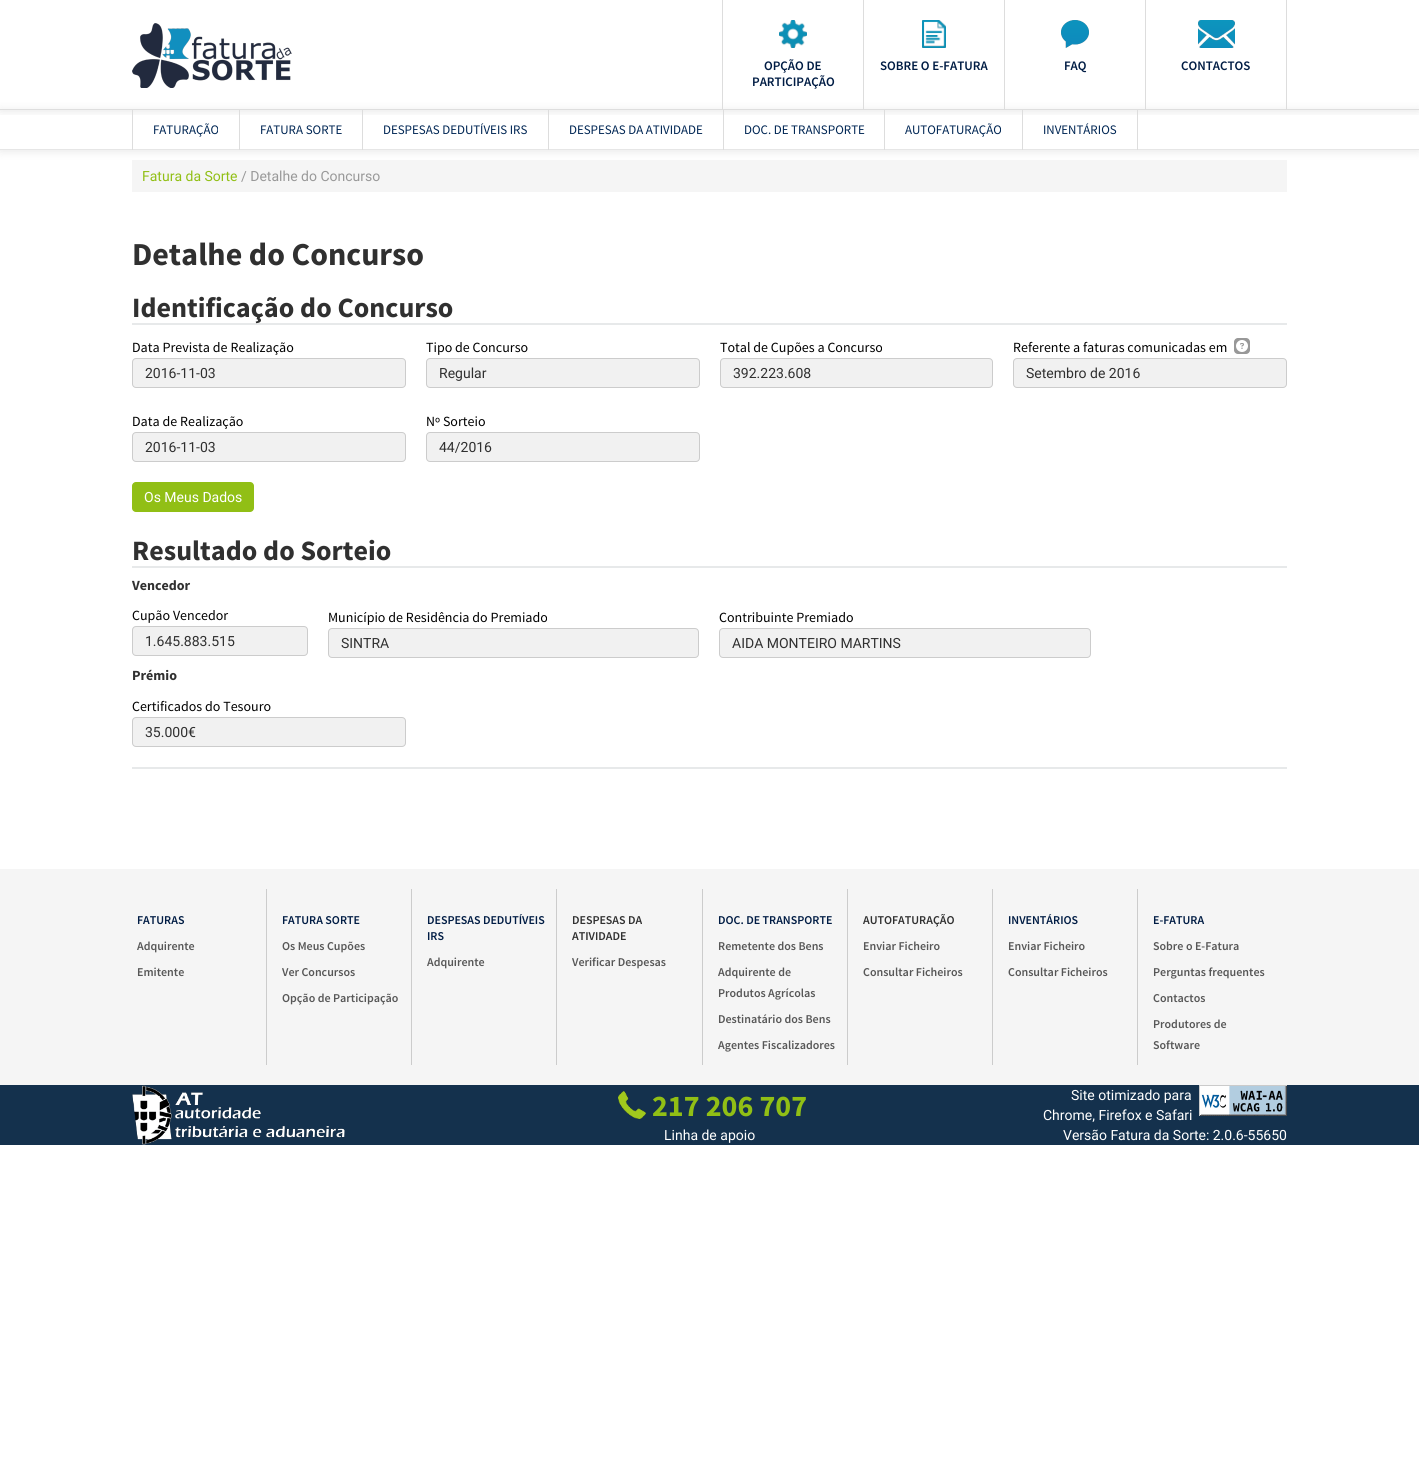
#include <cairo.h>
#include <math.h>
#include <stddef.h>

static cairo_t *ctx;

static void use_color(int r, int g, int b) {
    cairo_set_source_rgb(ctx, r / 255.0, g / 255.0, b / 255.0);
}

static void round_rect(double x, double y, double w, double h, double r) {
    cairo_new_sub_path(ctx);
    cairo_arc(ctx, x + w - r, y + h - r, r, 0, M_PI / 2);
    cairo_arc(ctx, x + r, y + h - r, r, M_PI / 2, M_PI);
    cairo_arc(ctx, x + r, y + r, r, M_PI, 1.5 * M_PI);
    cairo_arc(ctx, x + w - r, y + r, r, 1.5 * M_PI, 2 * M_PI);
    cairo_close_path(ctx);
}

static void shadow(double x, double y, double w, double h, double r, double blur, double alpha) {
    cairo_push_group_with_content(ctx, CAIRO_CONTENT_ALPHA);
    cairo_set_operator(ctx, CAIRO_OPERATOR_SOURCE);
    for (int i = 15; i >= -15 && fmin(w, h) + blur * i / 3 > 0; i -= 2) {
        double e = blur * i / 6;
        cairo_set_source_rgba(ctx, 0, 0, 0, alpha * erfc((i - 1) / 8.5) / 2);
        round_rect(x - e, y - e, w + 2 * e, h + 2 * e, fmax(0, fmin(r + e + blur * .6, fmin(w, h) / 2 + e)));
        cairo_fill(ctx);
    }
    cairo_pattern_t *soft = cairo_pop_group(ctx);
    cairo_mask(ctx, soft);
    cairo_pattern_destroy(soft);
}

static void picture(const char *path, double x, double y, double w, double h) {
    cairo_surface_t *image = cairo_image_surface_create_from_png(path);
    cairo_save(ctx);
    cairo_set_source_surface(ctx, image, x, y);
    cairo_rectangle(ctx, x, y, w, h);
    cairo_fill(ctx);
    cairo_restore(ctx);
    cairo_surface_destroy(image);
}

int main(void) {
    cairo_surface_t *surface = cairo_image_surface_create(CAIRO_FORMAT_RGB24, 1419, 1472);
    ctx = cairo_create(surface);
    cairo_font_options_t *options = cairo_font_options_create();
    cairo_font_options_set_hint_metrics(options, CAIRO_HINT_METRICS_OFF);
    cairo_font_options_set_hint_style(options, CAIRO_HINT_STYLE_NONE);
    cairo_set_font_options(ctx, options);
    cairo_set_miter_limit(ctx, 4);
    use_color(255, 255, 255);
    cairo_paint(ctx);
    cairo_save(ctx);
    cairo_rectangle(ctx, 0, 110, 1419, 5);
    cairo_clip(ctx);
    use_color(0, 0, 0);
    shadow(0, 1, 1419, 110, 0, 5, 0.1);
    cairo_restore(ctx);
    use_color(230, 230, 230);
    cairo_rectangle(ctx, 0, 109, 1419, 1);
    cairo_fill(ctx);
    picture("img1.png", 132, 23, 160, 65);
    cairo_save(ctx);
    cairo_set_fill_rule(ctx, CAIRO_FILL_RULE_EVEN_ODD);
    cairo_new_path(ctx);
    cairo_move_to(ctx, 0, 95);
    cairo_line_to(ctx, 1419, 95);
    cairo_line_to(ctx, 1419, 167);
    cairo_line_to(ctx, 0, 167);
    cairo_close_path(ctx);
    cairo_move_to(ctx, 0, 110);
    cairo_line_to(ctx, 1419, 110);
    cairo_line_to(ctx, 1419, 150);
    cairo_line_to(ctx, 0, 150);
    cairo_close_path(ctx);
    cairo_clip(ctx);
    use_color(0, 0, 0);
    shadow(0, 111, 1419, 40, 0, 5, 0.1);
    cairo_restore(ctx);
    use_color(221, 221, 221);
    cairo_rectangle(ctx, 863, 0, 1, 110);
    cairo_fill(ctx);
    cairo_rectangle(ctx, 722, 0, 1, 110);
    cairo_fill(ctx);
    picture("img2.png", 779, 20, 28, 28);
    cairo_select_font_face(ctx, "Source Sans Pro SemiBold", CAIRO_FONT_SLANT_NORMAL, CAIRO_FONT_WEIGHT_NORMAL);
    cairo_set_font_size(ctx, 13);
    use_color(0, 28, 68);
    cairo_move_to(ctx, 764, 70);
    cairo_show_text(ctx, "OPÇÃO DE");
    cairo_move_to(ctx, 752, 86);
    cairo_show_text(ctx, "PARTICIPAÇÃO");
    use_color(221, 221, 221);
    cairo_rectangle(ctx, 1004, 0, 1, 110);
    cairo_fill(ctx);
    picture("img3.png", 922, 20, 24, 28);
    use_color(0, 28, 68);
    cairo_move_to(ctx, 880, 70);
    cairo_show_text(ctx, "SOBRE O E-FATURA");
    use_color(221, 221, 221);
    cairo_rectangle(ctx, 1145, 0, 1, 110);
    cairo_fill(ctx);
    picture("img4.png", 1061, 20, 28, 28);
    use_color(0, 28, 68);
    cairo_move_to(ctx, 1064, 70);
    cairo_show_text(ctx, "FAQ");
    use_color(221, 221, 221);
    cairo_rectangle(ctx, 1286, 0, 1, 110);
    cairo_fill(ctx);
    picture("img5.png", 1198, 20, 37, 28);
    use_color(0, 28, 68);
    cairo_move_to(ctx, 1181, 70);
    cairo_show_text(ctx, "CONTACTOS");
    use_color(230, 230, 230);
    cairo_rectangle(ctx, 0, 149, 1419, 1);
    cairo_fill(ctx);
    use_color(221, 221, 221);
    cairo_rectangle(ctx, 239, 110, 1, 40);
    cairo_fill(ctx);
    cairo_rectangle(ctx, 132, 110, 1, 40);
    cairo_fill(ctx);
    cairo_select_font_face(ctx, "Source Sans Pro", CAIRO_FONT_SLANT_NORMAL, CAIRO_FONT_WEIGHT_NORMAL);
    use_color(0, 38, 84);
    cairo_move_to(ctx, 153, 134);
    cairo_show_text(ctx, "FATURAÇÃO");
    use_color(221, 221, 221);
    cairo_rectangle(ctx, 362, 110, 1, 40);
    cairo_fill(ctx);
    use_color(0, 38, 84);
    cairo_move_to(ctx, 260, 134);
    cairo_show_text(ctx, "FATURA SORTE");
    use_color(221, 221, 221);
    cairo_rectangle(ctx, 548, 110, 1, 40);
    cairo_fill(ctx);
    use_color(0, 38, 84);
    cairo_move_to(ctx, 383, 134);
    cairo_show_text(ctx, "DESPESAS DEDUTÍVEIS IRS");
    use_color(221, 221, 221);
    cairo_rectangle(ctx, 723, 110, 1, 40);
    cairo_fill(ctx);
    use_color(0, 38, 84);
    cairo_move_to(ctx, 569, 134);
    cairo_show_text(ctx, "DESPESAS DA ATIVIDADE");
    use_color(221, 221, 221);
    cairo_rectangle(ctx, 884, 110, 1, 40);
    cairo_fill(ctx);
    use_color(0, 38, 84);
    cairo_move_to(ctx, 744, 134);
    cairo_show_text(ctx, "DOC. DE TRANSPORTE");
    use_color(221, 221, 221);
    cairo_rectangle(ctx, 1022, 110, 1, 40);
    cairo_fill(ctx);
    use_color(0, 38, 84);
    cairo_move_to(ctx, 905, 134);
    cairo_show_text(ctx, "AUTOFATURAÇÃO");
    use_color(221, 221, 221);
    cairo_rectangle(ctx, 1137, 110, 1, 40);
    cairo_fill(ctx);
    use_color(0, 38, 84);
    cairo_move_to(ctx, 1043, 134);
    cairo_show_text(ctx, "INVENTÁRIOS");
    use_color(245, 245, 245);
    cairo_rectangle(ctx, 132, 160, 1155, 32);
    cairo_fill(ctx);
    cairo_select_font_face(ctx, "Roboto", CAIRO_FONT_SLANT_NORMAL, CAIRO_FONT_WEIGHT_NORMAL);
    cairo_set_font_size(ctx, 14);
    use_color(145, 191, 21);
    cairo_move_to(ctx, 142, 181);
    cairo_show_text(ctx, "Fatura da Sorte");
    use_color(153, 153, 153);
    cairo_move_to(ctx, 241, 181);
    cairo_show_text(ctx, "/ Detalhe do Concurso");
    cairo_select_font_face(ctx, "Source Sans Pro", CAIRO_FONT_SLANT_NORMAL, CAIRO_FONT_WEIGHT_BOLD);
    cairo_set_font_size(ctx, 32);
    use_color(48, 48, 48);
    cairo_move_to(ctx, 132, 265);
    cairo_show_text(ctx, "Detalhe do Concurso");
    use_color(231, 233, 234);
    cairo_rectangle(ctx, 132, 323, 1155, 2);
    cairo_fill(ctx);
    cairo_set_font_size(ctx, 28);
    use_color(48, 48, 48);
    cairo_move_to(ctx, 132, 317);
    cairo_show_text(ctx, "Identificação do Concurso");
    cairo_select_font_face(ctx, "Source Sans Pro", CAIRO_FONT_SLANT_NORMAL, CAIRO_FONT_WEIGHT_NORMAL);
    cairo_set_font_size(ctx, 14);
    use_color(0, 0, 0);
    cairo_move_to(ctx, 132, 352);
    cairo_show_text(ctx, "Data Prevista de Realização");
    use_color(241, 241, 241);
    round_rect(132.5, 358.5, 273, 29, 3.5);
    cairo_fill_preserve(ctx);
    use_color(204, 204, 204);
    cairo_set_line_width(ctx, 1);
    cairo_stroke(ctx);
    cairo_select_font_face(ctx, "Roboto", CAIRO_FONT_SLANT_NORMAL, CAIRO_FONT_WEIGHT_NORMAL);
    use_color(48, 48, 48);
    cairo_move_to(ctx, 145, 378);
    cairo_show_text(ctx, "2016-11-03");
    cairo_select_font_face(ctx, "Source Sans Pro", CAIRO_FONT_SLANT_NORMAL, CAIRO_FONT_WEIGHT_NORMAL);
    use_color(0, 0, 0);
    cairo_move_to(ctx, 426, 352);
    cairo_show_text(ctx, "Tipo de Concurso");
    use_color(241, 241, 241);
    round_rect(426.5, 358.5, 273, 29, 3.5);
    cairo_fill_preserve(ctx);
    use_color(204, 204, 204);
    cairo_stroke(ctx);
    cairo_select_font_face(ctx, "Roboto", CAIRO_FONT_SLANT_NORMAL, CAIRO_FONT_WEIGHT_NORMAL);
    use_color(48, 48, 48);
    cairo_move_to(ctx, 439, 378);
    cairo_show_text(ctx, "Regular");
    cairo_select_font_face(ctx, "Source Sans Pro", CAIRO_FONT_SLANT_NORMAL, CAIRO_FONT_WEIGHT_NORMAL);
    use_color(0, 0, 0);
    cairo_move_to(ctx, 720, 352);
    cairo_show_text(ctx, "Total de Cupões a Concurso");
    use_color(241, 241, 241);
    round_rect(720.5, 358.5, 272, 29, 3.5);
    cairo_fill_preserve(ctx);
    use_color(204, 204, 204);
    cairo_stroke(ctx);
    cairo_select_font_face(ctx, "Roboto", CAIRO_FONT_SLANT_NORMAL, CAIRO_FONT_WEIGHT_NORMAL);
    use_color(48, 48, 48);
    cairo_move_to(ctx, 733, 378);
    cairo_show_text(ctx, "392.223.608");
    cairo_select_font_face(ctx, "Source Sans Pro", CAIRO_FONT_SLANT_NORMAL, CAIRO_FONT_WEIGHT_NORMAL);
    use_color(0, 0, 0);
    cairo_move_to(ctx, 1013, 352);
    cairo_show_text(ctx, "Referente a faturas comunicadas em");
    use_color(152, 152, 152);
    round_rect(1234, 338, 16, 16, 4);
    cairo_fill(ctx);
    picture("img6.png", 1236, 340, 12, 12);
    use_color(241, 241, 241);
    round_rect(1013.5, 358.5, 273, 29, 3.5);
    cairo_fill_preserve(ctx);
    use_color(204, 204, 204);
    cairo_stroke(ctx);
    cairo_select_font_face(ctx, "Roboto", CAIRO_FONT_SLANT_NORMAL, CAIRO_FONT_WEIGHT_NORMAL);
    use_color(48, 48, 48);
    cairo_move_to(ctx, 1026, 378);
    cairo_show_text(ctx, "Setembro de 2016");
    cairo_select_font_face(ctx, "Source Sans Pro", CAIRO_FONT_SLANT_NORMAL, CAIRO_FONT_WEIGHT_NORMAL);
    use_color(0, 0, 0);
    cairo_move_to(ctx, 132, 426);
    cairo_show_text(ctx, "Data de Realização");
    use_color(241, 241, 241);
    round_rect(132.5, 432.5, 273, 29, 3.5);
    cairo_fill_preserve(ctx);
    use_color(204, 204, 204);
    cairo_stroke(ctx);
    cairo_select_font_face(ctx, "Roboto", CAIRO_FONT_SLANT_NORMAL, CAIRO_FONT_WEIGHT_NORMAL);
    use_color(48, 48, 48);
    cairo_move_to(ctx, 145, 452);
    cairo_show_text(ctx, "2016-11-03");
    cairo_select_font_face(ctx, "Source Sans Pro", CAIRO_FONT_SLANT_NORMAL, CAIRO_FONT_WEIGHT_NORMAL);
    use_color(0, 0, 0);
    cairo_move_to(ctx, 426, 426);
    cairo_show_text(ctx, "Nº Sorteio");
    use_color(241, 241, 241);
    round_rect(426.5, 432.5, 273, 29, 3.5);
    cairo_fill_preserve(ctx);
    use_color(204, 204, 204);
    cairo_stroke(ctx);
    cairo_select_font_face(ctx, "Roboto", CAIRO_FONT_SLANT_NORMAL, CAIRO_FONT_WEIGHT_NORMAL);
    use_color(48, 48, 48);
    cairo_move_to(ctx, 439, 452);
    cairo_show_text(ctx, "44/2016");
    use_color(145, 191, 21);
    round_rect(132, 482, 122, 30, 4);
    cairo_fill(ctx);
    use_color(255, 255, 255);
    cairo_move_to(ctx, 144, 502);
    cairo_show_text(ctx, "Os Meus Dados");
    use_color(231, 233, 234);
    cairo_rectangle(ctx, 132, 566, 1155, 2);
    cairo_fill(ctx);
    cairo_select_font_face(ctx, "Source Sans Pro", CAIRO_FONT_SLANT_NORMAL, CAIRO_FONT_WEIGHT_BOLD);
    cairo_set_font_size(ctx, 28);
    use_color(48, 48, 48);
    cairo_move_to(ctx, 132, 560);
    cairo_show_text(ctx, "Resultado do Sorteio");
    use_color(231, 233, 234);
    cairo_rectangle(ctx, 132, 767, 1155, 2);
    cairo_fill(ctx);
    cairo_set_font_size(ctx, 14);
    use_color(48, 48, 48);
    cairo_move_to(ctx, 132, 590);
    cairo_show_text(ctx, "Vencedor");
    cairo_select_font_face(ctx, "Source Sans Pro", CAIRO_FONT_SLANT_NORMAL, CAIRO_FONT_WEIGHT_NORMAL);
    use_color(0, 0, 0);
    cairo_move_to(ctx, 132, 620);
    cairo_show_text(ctx, "Cupão Vencedor");
    use_color(241, 241, 241);
    round_rect(132.5, 626.5, 175, 29, 3.5);
    cairo_fill_preserve(ctx);
    use_color(204, 204, 204);
    cairo_stroke(ctx);
    cairo_select_font_face(ctx, "Roboto", CAIRO_FONT_SLANT_NORMAL, CAIRO_FONT_WEIGHT_NORMAL);
    use_color(48, 48, 48);
    cairo_move_to(ctx, 145, 646);
    cairo_show_text(ctx, "1.645.883.515");
    cairo_select_font_face(ctx, "Source Sans Pro", CAIRO_FONT_SLANT_NORMAL, CAIRO_FONT_WEIGHT_NORMAL);
    use_color(0, 0, 0);
    cairo_move_to(ctx, 328, 622);
    cairo_show_text(ctx, "Município de Residência do Premiado");
    use_color(241, 241, 241);
    round_rect(328.5, 628.5, 370, 29, 3.5);
    cairo_fill_preserve(ctx);
    use_color(204, 204, 204);
    cairo_stroke(ctx);
    cairo_select_font_face(ctx, "Roboto", CAIRO_FONT_SLANT_NORMAL, CAIRO_FONT_WEIGHT_NORMAL);
    use_color(48, 48, 48);
    cairo_move_to(ctx, 341, 648);
    cairo_show_text(ctx, "SINTRA");
    cairo_select_font_face(ctx, "Source Sans Pro", CAIRO_FONT_SLANT_NORMAL, CAIRO_FONT_WEIGHT_NORMAL);
    use_color(0, 0, 0);
    cairo_move_to(ctx, 719, 622);
    cairo_show_text(ctx, "Contribuinte Premiado");
    use_color(241, 241, 241);
    round_rect(719.5, 628.5, 371, 29, 3.5);
    cairo_fill_preserve(ctx);
    use_color(204, 204, 204);
    cairo_stroke(ctx);
    cairo_select_font_face(ctx, "Roboto", CAIRO_FONT_SLANT_NORMAL, CAIRO_FONT_WEIGHT_NORMAL);
    use_color(48, 48, 48);
    cairo_move_to(ctx, 732, 648);
    cairo_show_text(ctx, "AIDA MONTEIRO MARTINS");
    cairo_select_font_face(ctx, "Source Sans Pro", CAIRO_FONT_SLANT_NORMAL, CAIRO_FONT_WEIGHT_BOLD);
    cairo_move_to(ctx, 132, 680);
    cairo_show_text(ctx, "Prémio");
    cairo_select_font_face(ctx, "Source Sans Pro", CAIRO_FONT_SLANT_NORMAL, CAIRO_FONT_WEIGHT_NORMAL);
    use_color(0, 0, 0);
    cairo_move_to(ctx, 132, 711);
    cairo_show_text(ctx, "Certificados do Tesouro");
    use_color(241, 241, 241);
    round_rect(132.5, 717.5, 273, 29, 3.5);
    cairo_fill_preserve(ctx);
    use_color(204, 204, 204);
    cairo_stroke(ctx);
    cairo_select_font_face(ctx, "Roboto", CAIRO_FONT_SLANT_NORMAL, CAIRO_FONT_WEIGHT_NORMAL);
    use_color(48, 48, 48);
    cairo_move_to(ctx, 145, 737);
    cairo_show_text(ctx, "35.000€");
    use_color(245, 245, 245);
    cairo_rectangle(ctx, 0, 869, 1419, 216);
    cairo_fill(ctx);
    cairo_select_font_face(ctx, "Source Sans Pro SemiBold", CAIRO_FONT_SLANT_NORMAL, CAIRO_FONT_WEIGHT_NORMAL);
    cairo_set_font_size(ctx, 12);
    use_color(0, 28, 68);
    cairo_move_to(ctx, 137, 924);
    cairo_show_text(ctx, "FATURAS");
    use_color(87, 87, 87);
    cairo_move_to(ctx, 137, 950);
    cairo_show_text(ctx, "Adquirente");
    cairo_move_to(ctx, 137, 976);
    cairo_show_text(ctx, "Emitente");
    use_color(204, 204, 204);
    cairo_rectangle(ctx, 266, 889, 1, 176);
    cairo_fill(ctx);
    use_color(0, 28, 68);
    cairo_move_to(ctx, 282, 924);
    cairo_show_text(ctx, "FATURA SORTE");
    use_color(87, 87, 87);
    cairo_move_to(ctx, 282, 950);
    cairo_show_text(ctx, "Os Meus Cupões");
    cairo_move_to(ctx, 282, 976);
    cairo_show_text(ctx, "Ver Concursos");
    cairo_move_to(ctx, 282, 1002);
    cairo_show_text(ctx, "Opção de Participação");
    use_color(204, 204, 204);
    cairo_rectangle(ctx, 411, 889, 1, 176);
    cairo_fill(ctx);
    use_color(0, 28, 68);
    cairo_move_to(ctx, 427, 924);
    cairo_show_text(ctx, "DESPESAS DEDUTÍVEIS");
    cairo_move_to(ctx, 427, 940);
    cairo_show_text(ctx, "IRS");
    use_color(87, 87, 87);
    cairo_move_to(ctx, 427, 966);
    cairo_show_text(ctx, "Adquirente");
    use_color(204, 204, 204);
    cairo_rectangle(ctx, 556, 889, 1, 176);
    cairo_fill(ctx);
    use_color(48, 48, 48);
    cairo_move_to(ctx, 572, 924);
    cairo_show_text(ctx, "DESPESAS DA");
    cairo_move_to(ctx, 572, 940);
    cairo_show_text(ctx, "ATIVIDADE");
    use_color(87, 87, 87);
    cairo_move_to(ctx, 572, 966);
    cairo_show_text(ctx, "Verificar Despesas");
    use_color(204, 204, 204);
    cairo_rectangle(ctx, 702, 889, 1, 176);
    cairo_fill(ctx);
    use_color(0, 28, 68);
    cairo_move_to(ctx, 718, 924);
    cairo_show_text(ctx, "DOC. DE TRANSPORTE");
    use_color(87, 87, 87);
    cairo_move_to(ctx, 718, 950);
    cairo_show_text(ctx, "Remetente dos Bens");
    cairo_move_to(ctx, 718, 976);
    cairo_show_text(ctx, "Adquirente de");
    cairo_move_to(ctx, 718, 997);
    cairo_show_text(ctx, "Produtos Agrícolas");
    cairo_move_to(ctx, 718, 1023);
    cairo_show_text(ctx, "Destinatário dos Bens");
    cairo_move_to(ctx, 718, 1049);
    cairo_show_text(ctx, "Agentes Fiscalizadores");
    use_color(204, 204, 204);
    cairo_rectangle(ctx, 847, 889, 1, 176);
    cairo_fill(ctx);
    use_color(48, 48, 48);
    cairo_move_to(ctx, 863, 924);
    cairo_show_text(ctx, "AUTOFATURAÇÃO");
    use_color(87, 87, 87);
    cairo_move_to(ctx, 863, 950);
    cairo_show_text(ctx, "Enviar Ficheiro");
    cairo_move_to(ctx, 863, 976);
    cairo_show_text(ctx, "Consultar Ficheiros");
    use_color(204, 204, 204);
    cairo_rectangle(ctx, 992, 889, 1, 176);
    cairo_fill(ctx);
    use_color(0, 28, 68);
    cairo_move_to(ctx, 1008, 924);
    cairo_show_text(ctx, "INVENTÁRIOS");
    use_color(87, 87, 87);
    cairo_move_to(ctx, 1008, 950);
    cairo_show_text(ctx, "Enviar Ficheiro");
    cairo_move_to(ctx, 1008, 976);
    cairo_show_text(ctx, "Consultar Ficheiros");
    use_color(204, 204, 204);
    cairo_rectangle(ctx, 1137, 889, 1, 176);
    cairo_fill(ctx);
    use_color(0, 28, 68);
    cairo_move_to(ctx, 1153, 924);
    cairo_show_text(ctx, "E-FATURA");
    use_color(87, 87, 87);
    cairo_move_to(ctx, 1153, 950);
    cairo_show_text(ctx, "Sobre o E-Fatura");
    cairo_move_to(ctx, 1153, 976);
    cairo_show_text(ctx, "Perguntas frequentes");
    cairo_move_to(ctx, 1153, 1002);
    cairo_show_text(ctx, "Contactos");
    cairo_move_to(ctx, 1153, 1028);
    cairo_show_text(ctx, "Produtores de");
    cairo_move_to(ctx, 1153, 1049);
    cairo_show_text(ctx, "Software");
    use_color(20, 49, 77);
    cairo_rectangle(ctx, 0, 1085, 1419, 60);
    cairo_fill(ctx);
    picture("img7.png", 132, 1085, 213, 60);
    picture("img8.png", 618, 1091, 28, 28);
    cairo_select_font_face(ctx, "Source Sans Pro", CAIRO_FONT_SLANT_NORMAL, CAIRO_FONT_WEIGHT_BOLD);
    cairo_set_font_size(ctx, 30);
    use_color(145, 191, 21);
    cairo_move_to(ctx, 652, 1116);
    cairo_show_text(ctx, "217 206 707");
    cairo_select_font_face(ctx, "Roboto", CAIRO_FONT_SLANT_NORMAL, CAIRO_FONT_WEIGHT_NORMAL);
    cairo_set_font_size(ctx, 14);
    use_color(255, 255, 255);
    cairo_move_to(ctx, 664, 1140);
    cairo_show_text(ctx, "Linha de apoio");
    cairo_move_to(ctx, 1071, 1100);
    cairo_show_text(ctx, "Site otimizado para");
    cairo_move_to(ctx, 1043, 1120);
    cairo_show_text(ctx, "Chrome, Firefox e Safari");
    picture("img9.png", 1199, 1085, 88, 31);
    cairo_move_to(ctx, 1063, 1140);
    cairo_show_text(ctx, "Versão Fatura da Sorte: 2.0.6-55650");
    cairo_surface_write_to_png(surface, "result.png");
    cairo_font_options_destroy(options);
    cairo_destroy(ctx);
    cairo_surface_destroy(surface);
    return 0;
}
